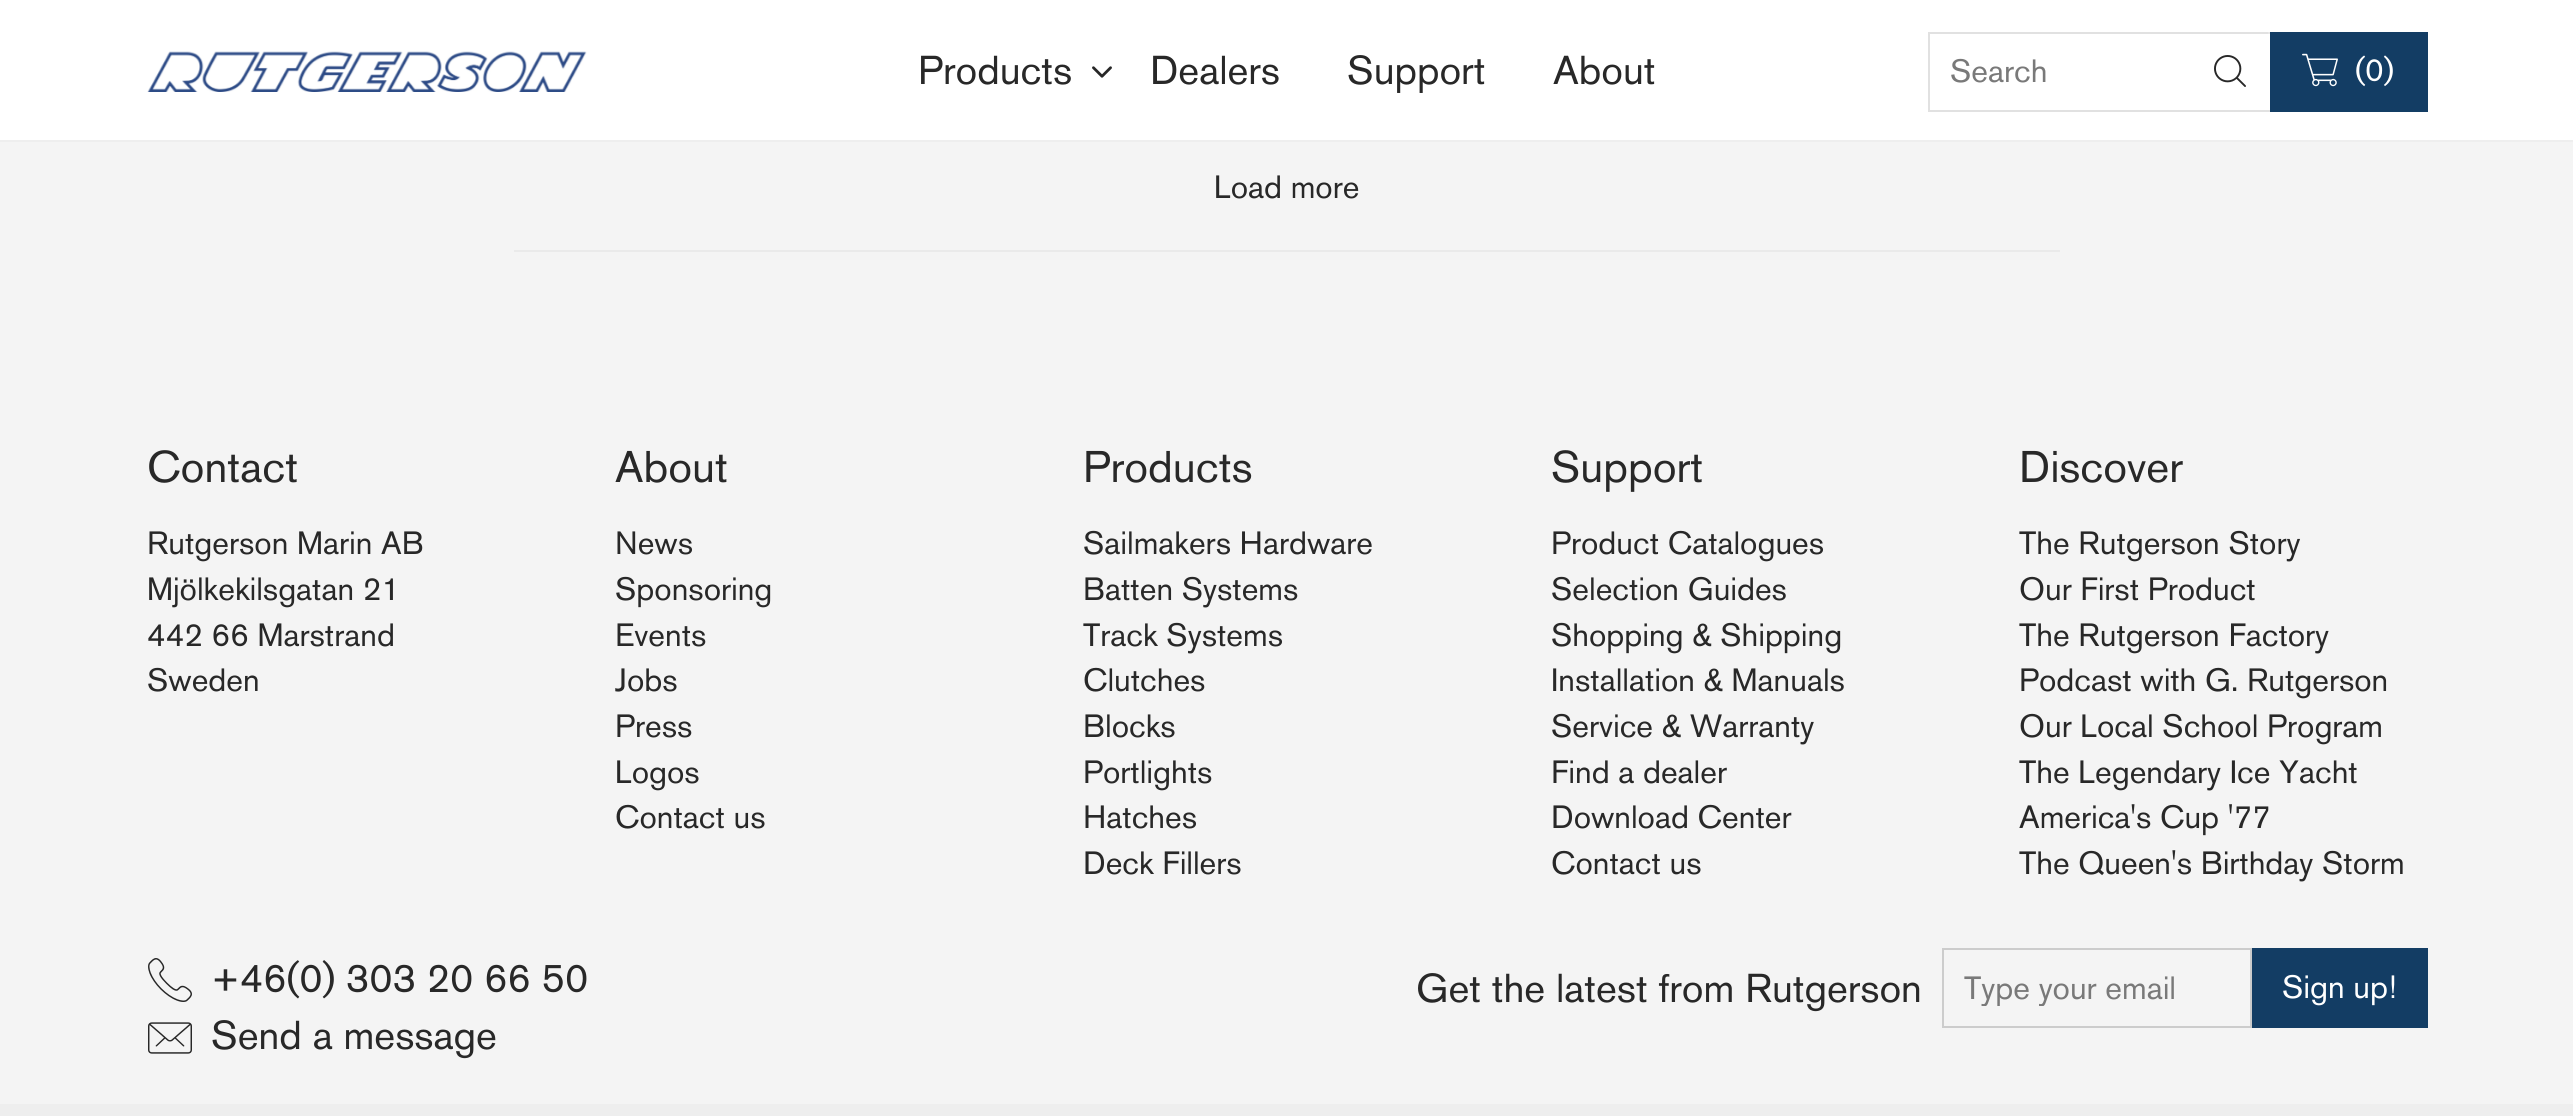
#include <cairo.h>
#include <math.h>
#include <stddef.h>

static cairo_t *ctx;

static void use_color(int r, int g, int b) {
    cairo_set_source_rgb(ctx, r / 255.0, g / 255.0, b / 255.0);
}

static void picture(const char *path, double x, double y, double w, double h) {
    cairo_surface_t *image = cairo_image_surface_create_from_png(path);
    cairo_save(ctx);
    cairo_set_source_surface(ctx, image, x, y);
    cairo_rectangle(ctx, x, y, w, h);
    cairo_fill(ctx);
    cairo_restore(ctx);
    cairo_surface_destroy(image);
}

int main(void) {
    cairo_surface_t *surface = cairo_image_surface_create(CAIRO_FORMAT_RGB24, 2573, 1116);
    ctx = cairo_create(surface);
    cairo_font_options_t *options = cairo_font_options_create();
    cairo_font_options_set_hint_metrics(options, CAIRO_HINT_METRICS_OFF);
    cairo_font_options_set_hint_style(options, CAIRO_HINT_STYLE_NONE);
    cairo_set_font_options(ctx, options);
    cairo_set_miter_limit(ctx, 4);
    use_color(244, 244, 244);
    cairo_paint(ctx);
    use_color(255, 255, 255);
    cairo_rectangle(ctx, 0, 0, 2573, 140);
    cairo_fill(ctx);
    use_color(238, 238, 238);
    cairo_rectangle(ctx, 0, 140, 2573, 2);
    cairo_fill(ctx);
    picture("img1.png", 147, 51, 440, 41);
    cairo_select_font_face(ctx, "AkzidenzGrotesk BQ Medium", CAIRO_FONT_SLANT_NORMAL, CAIRO_FONT_WEIGHT_NORMAL);
    cairo_set_font_size(ctx, 40);
    use_color(40, 40, 40);
    cairo_move_to(ctx, 918, 84);
    cairo_show_text(ctx, "Products");
    picture("img2.png", 1092, 66, 20, 12);
    cairo_move_to(ctx, 1150, 84);
    cairo_show_text(ctx, "Dealers");
    cairo_move_to(ctx, 1347, 84);
    cairo_show_text(ctx, "Support");
    cairo_move_to(ctx, 1553, 84);
    cairo_show_text(ctx, "About");
    use_color(225, 225, 225);
    cairo_rectangle(ctx, 1928, 32, 342, 2);
    cairo_fill(ctx);
    use_color(231, 231, 231);
    cairo_rectangle(ctx, 2268, 32, 2, 2);
    cairo_fill(ctx);
    use_color(225, 225, 225);
    cairo_rectangle(ctx, 1928, 110, 342, 2);
    cairo_fill(ctx);
    cairo_rectangle(ctx, 1928, 32, 2, 80);
    cairo_fill(ctx);
    cairo_set_font_size(ctx, 32);
    use_color(121, 121, 121);
    cairo_move_to(ctx, 1950, 82);
    cairo_show_text(ctx, "Search");
    cairo_select_font_face(ctx, "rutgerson", CAIRO_FONT_SLANT_NORMAL, CAIRO_FONT_WEIGHT_NORMAL);
    use_color(40, 40, 40);
    cairo_move_to(ctx, 2214, 87);
    cairo_show_text(ctx, "g");
    use_color(19, 61, 100);
    cairo_rectangle(ctx, 2270, 32, 158, 80);
    cairo_fill(ctx);
    picture("img3.png", 2302, 53, 36, 34);
    cairo_select_font_face(ctx, "AkzidenzGrotesk BQ Medium", CAIRO_FONT_SLANT_NORMAL, CAIRO_FONT_WEIGHT_NORMAL);
    use_color(255, 255, 255);
    cairo_move_to(ctx, 2355, 81);
    cairo_show_text(ctx, "(0)");
    use_color(234, 234, 234);
    cairo_rectangle(ctx, 514, 250, 1546, 2);
    cairo_fill(ctx);
    use_color(40, 40, 40);
    cairo_move_to(ctx, 1214, 198);
    cairo_show_text(ctx, "Load more");
    cairo_set_font_size(ctx, 44);
    cairo_move_to(ctx, 147, 482);
    cairo_show_text(ctx, "Contact");
    cairo_set_font_size(ctx, 32);
    cairo_move_to(ctx, 147, 554);
    cairo_show_text(ctx, "Rutgerson Marin AB");
    cairo_move_to(ctx, 147, 600);
    cairo_show_text(ctx, "Mjölkekilsgatan 21");
    cairo_move_to(ctx, 147, 646);
    cairo_show_text(ctx, "442 66 Marstrand");
    cairo_move_to(ctx, 147, 691);
    cairo_show_text(ctx, "Sweden");
    cairo_set_font_size(ctx, 44);
    cairo_move_to(ctx, 615, 482);
    cairo_show_text(ctx, "About");
    cairo_set_font_size(ctx, 32);
    cairo_move_to(ctx, 615, 554);
    cairo_show_text(ctx, "News");
    cairo_move_to(ctx, 615, 600);
    cairo_show_text(ctx, "Sponsoring");
    cairo_move_to(ctx, 615, 646);
    cairo_show_text(ctx, "Events");
    cairo_move_to(ctx, 615, 691);
    cairo_show_text(ctx, "Jobs");
    cairo_move_to(ctx, 615, 737);
    cairo_show_text(ctx, "Press");
    cairo_move_to(ctx, 615, 783);
    cairo_show_text(ctx, "Logos");
    cairo_move_to(ctx, 615, 828);
    cairo_show_text(ctx, "Contact us");
    cairo_set_font_size(ctx, 44);
    cairo_move_to(ctx, 1083, 482);
    cairo_show_text(ctx, "Products");
    cairo_set_font_size(ctx, 32);
    cairo_move_to(ctx, 1083, 554);
    cairo_show_text(ctx, "Sailmakers Hardware");
    cairo_move_to(ctx, 1083, 600);
    cairo_show_text(ctx, "Batten Systems");
    cairo_move_to(ctx, 1083, 646);
    cairo_show_text(ctx, "Track Systems");
    cairo_move_to(ctx, 1083, 691);
    cairo_show_text(ctx, "Clutches");
    cairo_move_to(ctx, 1083, 737);
    cairo_show_text(ctx, "Blocks");
    cairo_move_to(ctx, 1083, 783);
    cairo_show_text(ctx, "Portlights");
    cairo_move_to(ctx, 1083, 828);
    cairo_show_text(ctx, "Hatches");
    cairo_move_to(ctx, 1083, 874);
    cairo_show_text(ctx, "Deck Fillers");
    cairo_set_font_size(ctx, 44);
    cairo_move_to(ctx, 1551, 482);
    cairo_show_text(ctx, "Support");
    cairo_set_font_size(ctx, 32);
    cairo_move_to(ctx, 1551, 554);
    cairo_show_text(ctx, "Product Catalogues");
    cairo_move_to(ctx, 1551, 600);
    cairo_show_text(ctx, "Selection Guides");
    cairo_move_to(ctx, 1551, 646);
    cairo_show_text(ctx, "Shopping & Shipping");
    cairo_move_to(ctx, 1551, 691);
    cairo_show_text(ctx, "Installation & Manuals");
    cairo_move_to(ctx, 1551, 737);
    cairo_show_text(ctx, "Service & Warranty");
    cairo_move_to(ctx, 1551, 783);
    cairo_show_text(ctx, "Find a dealer");
    cairo_move_to(ctx, 1551, 828);
    cairo_show_text(ctx, "Download Center");
    cairo_move_to(ctx, 1551, 874);
    cairo_show_text(ctx, "Contact us");
    cairo_set_font_size(ctx, 44);
    cairo_move_to(ctx, 2019, 482);
    cairo_show_text(ctx, "Discover");
    cairo_set_font_size(ctx, 32);
    cairo_move_to(ctx, 2019, 554);
    cairo_show_text(ctx, "The Rutgerson Story");
    cairo_move_to(ctx, 2019, 600);
    cairo_show_text(ctx, "Our First Product");
    cairo_move_to(ctx, 2019, 646);
    cairo_show_text(ctx, "The Rutgerson Factory");
    cairo_move_to(ctx, 2019, 691);
    cairo_show_text(ctx, "Podcast with G. Rutgerson");
    cairo_move_to(ctx, 2019, 737);
    cairo_show_text(ctx, "Our Local School Program");
    cairo_move_to(ctx, 2019, 783);
    cairo_show_text(ctx, "The Legendary Ice Yacht");
    cairo_move_to(ctx, 2019, 828);
    cairo_show_text(ctx, "America's Cup '77");
    cairo_move_to(ctx, 2019, 874);
    cairo_show_text(ctx, "The Queen's Birthday Storm");
    picture("img4.png", 148, 958, 44, 44);
    cairo_set_font_size(ctx, 40);
    cairo_move_to(ctx, 211, 992);
    cairo_show_text(ctx, "+46(0) 303 20 66 50");
    picture("img5.png", 148, 1022, 44, 32);
    cairo_move_to(ctx, 211, 1049);
    cairo_show_text(ctx, "Send a message");
    cairo_move_to(ctx, 1416, 1002);
    cairo_show_text(ctx, "Get the latest from Rutgerson");
    cairo_rectangle(ctx, 1943, 949, 308, 78);
    use_color(204, 204, 204);
    cairo_stroke(ctx);
    cairo_save(ctx);
    cairo_rectangle(ctx, 1964, 968, 266, 38);
    cairo_clip(ctx);
    cairo_set_font_size(ctx, 32);
    use_color(121, 121, 121);
    cairo_move_to(ctx, 1964, 999);
    cairo_show_text(ctx, "Type your email");
    cairo_restore(ctx);
    use_color(19, 61, 100);
    cairo_rectangle(ctx, 2252, 948, 176, 80);
    cairo_fill(ctx);
    cairo_set_font_size(ctx, 32);
    use_color(255, 255, 255);
    cairo_move_to(ctx, 2282, 998);
    cairo_show_text(ctx, "Sign up!");
    use_color(238, 238, 238);
    cairo_rectangle(ctx, 0, 1104, 2573, 12);
    cairo_fill(ctx);
    cairo_surface_write_to_png(surface, "result.png");
    cairo_font_options_destroy(options);
    cairo_destroy(ctx);
    cairo_surface_destroy(surface);
    return 0;
}
